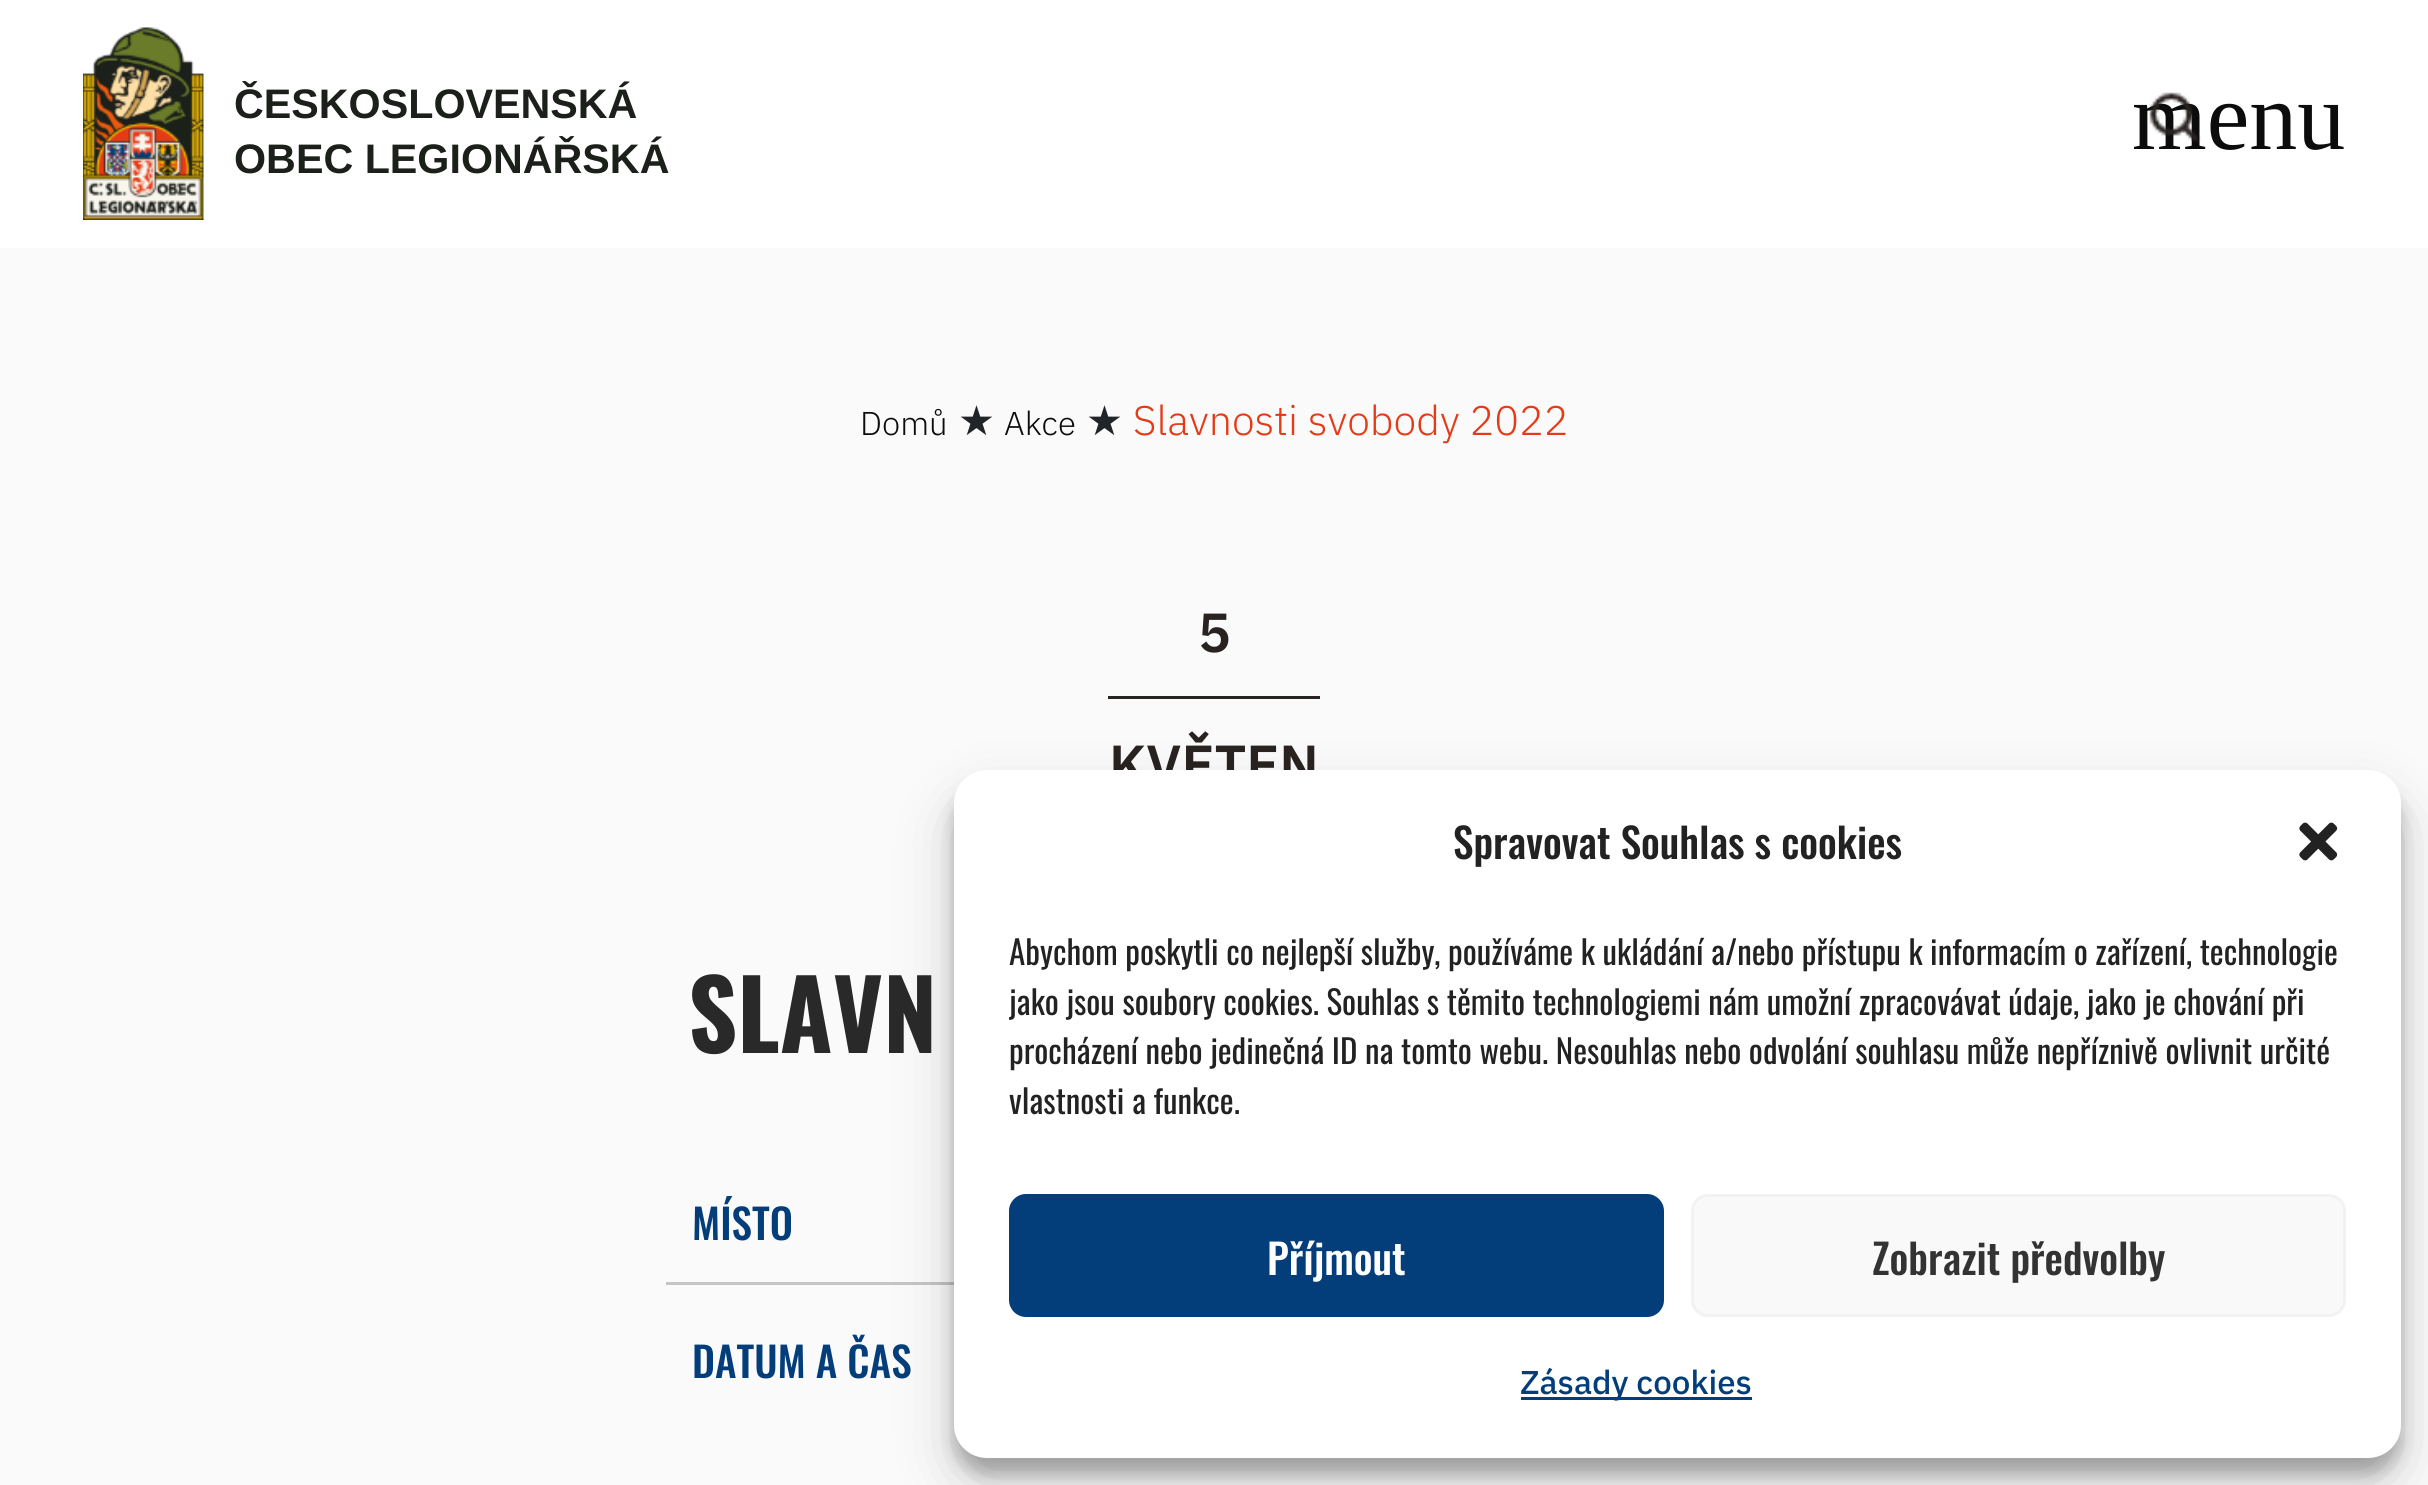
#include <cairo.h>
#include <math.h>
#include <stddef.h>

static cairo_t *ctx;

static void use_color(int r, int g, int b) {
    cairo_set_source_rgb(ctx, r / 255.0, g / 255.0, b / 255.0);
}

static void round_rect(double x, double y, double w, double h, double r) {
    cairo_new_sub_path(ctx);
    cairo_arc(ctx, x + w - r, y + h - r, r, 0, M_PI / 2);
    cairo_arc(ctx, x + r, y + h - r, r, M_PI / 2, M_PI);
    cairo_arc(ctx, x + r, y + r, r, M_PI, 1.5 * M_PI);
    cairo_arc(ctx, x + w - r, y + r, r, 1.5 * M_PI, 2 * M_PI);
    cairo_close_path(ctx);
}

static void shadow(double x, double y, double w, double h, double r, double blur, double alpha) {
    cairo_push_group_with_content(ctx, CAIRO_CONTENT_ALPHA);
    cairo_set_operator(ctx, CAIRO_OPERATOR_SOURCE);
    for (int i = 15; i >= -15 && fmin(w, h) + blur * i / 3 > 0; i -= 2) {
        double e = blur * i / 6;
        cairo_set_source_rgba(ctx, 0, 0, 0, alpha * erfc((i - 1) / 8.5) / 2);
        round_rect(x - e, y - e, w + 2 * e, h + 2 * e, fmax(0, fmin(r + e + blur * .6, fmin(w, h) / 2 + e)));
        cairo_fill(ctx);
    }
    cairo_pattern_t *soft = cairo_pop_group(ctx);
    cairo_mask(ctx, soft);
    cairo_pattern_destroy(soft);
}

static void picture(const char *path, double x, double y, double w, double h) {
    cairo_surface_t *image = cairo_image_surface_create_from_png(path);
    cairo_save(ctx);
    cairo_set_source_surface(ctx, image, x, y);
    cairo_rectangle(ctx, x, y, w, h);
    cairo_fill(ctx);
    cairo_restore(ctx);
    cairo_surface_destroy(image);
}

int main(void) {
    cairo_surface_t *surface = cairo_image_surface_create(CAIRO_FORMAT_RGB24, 2428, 1485);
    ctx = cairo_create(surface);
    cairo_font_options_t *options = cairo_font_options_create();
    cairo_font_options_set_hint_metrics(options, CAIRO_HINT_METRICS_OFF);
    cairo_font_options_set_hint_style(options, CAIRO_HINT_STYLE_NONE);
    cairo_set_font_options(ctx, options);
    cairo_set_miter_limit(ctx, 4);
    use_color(250, 250, 250);
    cairo_paint(ctx);
    use_color(255, 255, 255);
    cairo_rectangle(ctx, 0, 0, 2428, 248);
    cairo_fill(ctx);
    picture("img1.png", 83, 27, 121, 193);
    cairo_select_font_face(ctx, "Liberation Sans", CAIRO_FONT_SLANT_NORMAL, CAIRO_FONT_WEIGHT_BOLD);
    cairo_set_font_size(ctx, 41.25);
    use_color(28, 32, 27);
    cairo_move_to(ctx, 234, 118);
    cairo_show_text(ctx, "ČESKOSLOVENSKÁ");
    cairo_move_to(ctx, 234, 173);
    cairo_show_text(ctx, "OBEC LEGIONÁŘSKÁ");
    cairo_select_font_face(ctx, "Liberation Serif", CAIRO_FONT_SLANT_NORMAL, CAIRO_FONT_WEIGHT_NORMAL);
    cairo_set_font_size(ctx, 96);
    use_color(13, 12, 12);
    cairo_move_to(ctx, 2132, 149);
    cairo_show_text(ctx, "menu");
    picture("img2.png", 2149, 92, 52, 50);
    cairo_select_font_face(ctx, "IBM Plex Sans Light", CAIRO_FONT_SLANT_NORMAL, CAIRO_FONT_WEIGHT_NORMAL);
    cairo_set_font_size(ctx, 33);
    cairo_move_to(ctx, 860, 435);
    cairo_show_text(ctx, "Domů");
    cairo_select_font_face(ctx, "DejaVu Sans", CAIRO_FONT_SLANT_NORMAL, CAIRO_FONT_WEIGHT_NORMAL);
    cairo_set_font_size(ctx, 41.25);
    use_color(33, 37, 41);
    cairo_move_to(ctx, 958, 435);
    cairo_show_text(ctx, "★");
    cairo_select_font_face(ctx, "IBM Plex Sans Light", CAIRO_FONT_SLANT_NORMAL, CAIRO_FONT_WEIGHT_NORMAL);
    cairo_set_font_size(ctx, 33);
    use_color(13, 12, 12);
    cairo_move_to(ctx, 1004, 435);
    cairo_show_text(ctx, "Akce");
    cairo_select_font_face(ctx, "DejaVu Sans", CAIRO_FONT_SLANT_NORMAL, CAIRO_FONT_WEIGHT_NORMAL);
    cairo_set_font_size(ctx, 41.25);
    use_color(33, 37, 41);
    cairo_move_to(ctx, 1086, 435);
    cairo_show_text(ctx, "★");
    cairo_select_font_face(ctx, "IBM Plex Sans Light", CAIRO_FONT_SLANT_NORMAL, CAIRO_FONT_WEIGHT_NORMAL);
    use_color(229, 58, 22);
    cairo_move_to(ctx, 1133, 435);
    cairo_show_text(ctx, "Slavnosti svobody 2022");
    cairo_select_font_face(ctx, "IBM Plex Sans SemiBold", CAIRO_FONT_SLANT_NORMAL, CAIRO_FONT_WEIGHT_NORMAL);
    cairo_set_font_size(ctx, 55);
    use_color(40, 34, 32);
    cairo_move_to(ctx, 1198, 652);
    cairo_show_text(ctx, "5");
    cairo_rectangle(ctx, 1108, 696, 212, 3);
    cairo_fill(ctx);
    cairo_move_to(ctx, 1109, 784);
    cairo_show_text(ctx, "KVĚTEN");
    cairo_select_font_face(ctx, "Oswald", CAIRO_FONT_SLANT_NORMAL, CAIRO_FONT_WEIGHT_BOLD);
    cairo_set_font_size(ctx, 96);
    use_color(41, 41, 41);
    cairo_move_to(ctx, 688, 1053);
    cairo_show_text(ctx, "SLAVN");
    use_color(196, 196, 196);
    cairo_rectangle(ctx, 666, 1282, 288, 3);
    cairo_fill(ctx);
    cairo_select_font_face(ctx, "Oswald Medium", CAIRO_FONT_SLANT_NORMAL, CAIRO_FONT_WEIGHT_NORMAL);
    cairo_set_font_size(ctx, 41.25);
    use_color(3, 62, 122);
    cairo_move_to(ctx, 692, 1240);
    cairo_show_text(ctx, "MÍSTO");
    cairo_move_to(ctx, 692, 1378);
    cairo_show_text(ctx, "DATUM A ČAS");
    use_color(0, 0, 0);
    shadow(954, 787, 1447, 687, 33, 8, 0.23);
    shadow(954, 798, 1447, 687, 33, 27.5, 0.19);
    use_color(255, 255, 255);
    round_rect(954, 770, 1447, 688, 33);
    cairo_fill(ctx);
    use_color(34, 34, 34);
    cairo_move_to(ctx, 1453, 859);
    cairo_show_text(ctx, "Spravovat Souhlas s cookies");
    picture("img3.png", 2299, 822, 39, 39);
    cairo_select_font_face(ctx, "Oswald", CAIRO_FONT_SLANT_NORMAL, CAIRO_FONT_WEIGHT_NORMAL);
    cairo_set_font_size(ctx, 33);
    cairo_move_to(ctx, 1009, 965);
    cairo_show_text(ctx, "Abychom poskytli co nejlepší služby, používáme k ukládání a/nebo přístupu k informacím o zařízení, technologie");
    cairo_save(ctx);
    cairo_rectangle(ctx, 1009, 927, 1337, 212);
    cairo_clip(ctx);
    cairo_move_to(ctx, 1009, 1015);
    cairo_show_text(ctx, "jako jsou soubory cookies. Souhlas s těmito technologiemi nám umožní zpracovávat údaje, jako je chování při");
    cairo_restore(ctx);
    cairo_move_to(ctx, 1009, 1064);
    cairo_show_text(ctx, "procházení nebo jedinečná ID na tomto webu. Nesouhlas nebo odvolání souhlasu může nepříznivě ovlivnit určité");
    cairo_move_to(ctx, 1009, 1114);
    cairo_show_text(ctx, "vlastnosti a funkce.");
    use_color(3, 62, 122);
    round_rect(1010.5, 1195.5, 652, 120, 15.5);
    cairo_fill_preserve(ctx);
    cairo_set_line_width(ctx, 3);
    cairo_stroke(ctx);
    cairo_select_font_face(ctx, "Oswald Medium", CAIRO_FONT_SLANT_NORMAL, CAIRO_FONT_WEIGHT_NORMAL);
    cairo_set_font_size(ctx, 41.25);
    use_color(255, 255, 255);
    cairo_move_to(ctx, 1267, 1275);
    cairo_show_text(ctx, "Příjmout");
    use_color(249, 249, 249);
    round_rect(1692.5, 1195.5, 652, 120, 15.5);
    cairo_fill_preserve(ctx);
    use_color(242, 242, 242);
    cairo_stroke(ctx);
    use_color(51, 51, 51);
    cairo_move_to(ctx, 1872, 1275);
    cairo_show_text(ctx, "Zobrazit předvolby");
    use_color(3, 62, 122);
    cairo_rectangle(ctx, 1521, 1397, 231, 3);
    cairo_fill(ctx);
    cairo_select_font_face(ctx, "IBM Plex Sans Medium", CAIRO_FONT_SLANT_NORMAL, CAIRO_FONT_WEIGHT_NORMAL);
    cairo_set_font_size(ctx, 33);
    cairo_move_to(ctx, 1520, 1394);
    cairo_show_text(ctx, "Zásady cookies");
    cairo_surface_write_to_png(surface, "result.png");
    cairo_font_options_destroy(options);
    cairo_destroy(ctx);
    cairo_surface_destroy(surface);
    return 0;
}
